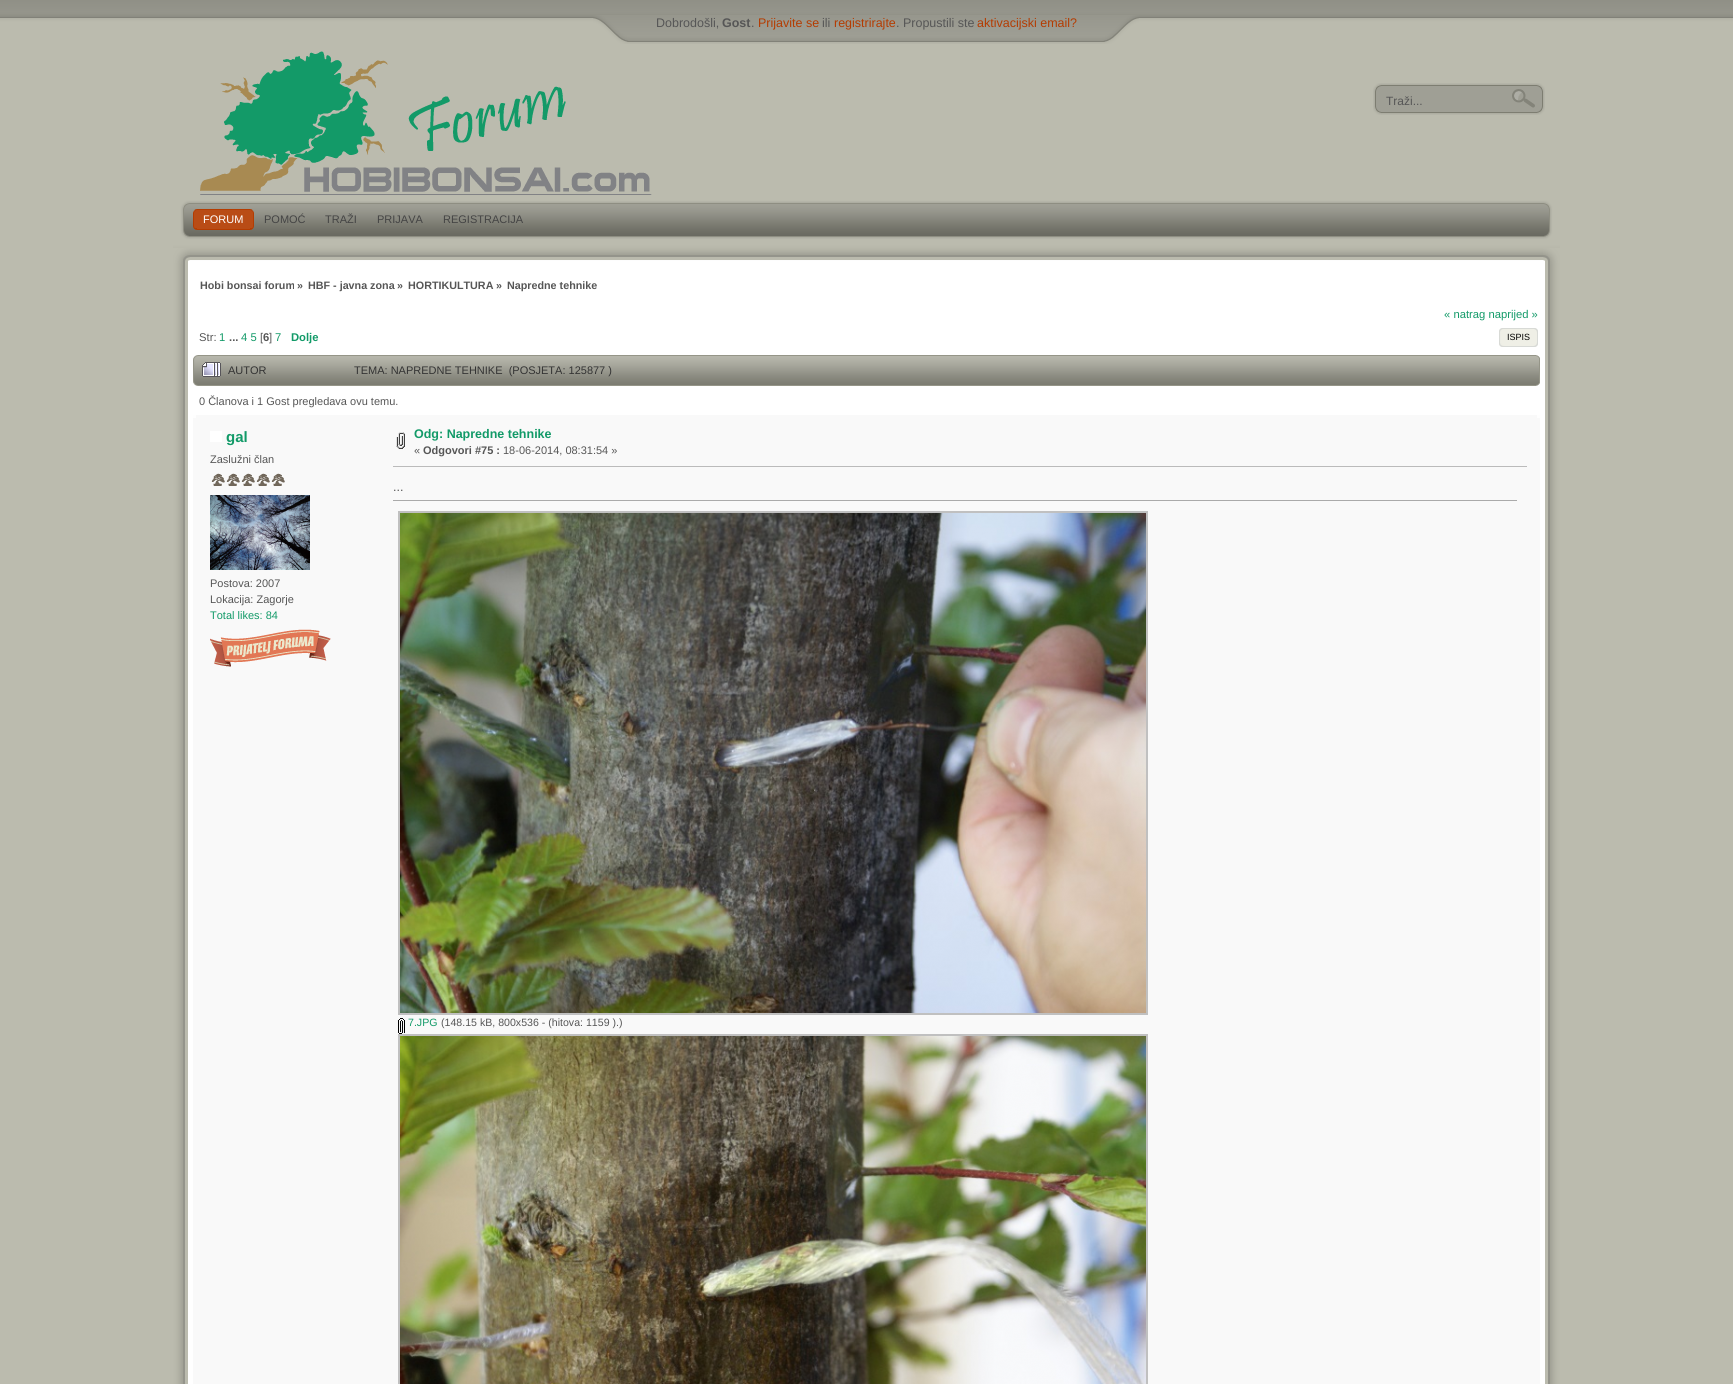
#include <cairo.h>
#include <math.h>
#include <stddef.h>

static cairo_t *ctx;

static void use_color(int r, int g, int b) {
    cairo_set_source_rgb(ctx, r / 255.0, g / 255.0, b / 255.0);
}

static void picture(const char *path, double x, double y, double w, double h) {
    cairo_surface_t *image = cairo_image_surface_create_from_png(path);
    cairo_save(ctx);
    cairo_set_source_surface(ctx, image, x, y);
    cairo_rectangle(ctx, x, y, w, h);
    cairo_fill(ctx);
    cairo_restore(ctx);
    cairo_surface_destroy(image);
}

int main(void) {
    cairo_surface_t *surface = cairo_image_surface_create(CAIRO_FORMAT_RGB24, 1733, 1384);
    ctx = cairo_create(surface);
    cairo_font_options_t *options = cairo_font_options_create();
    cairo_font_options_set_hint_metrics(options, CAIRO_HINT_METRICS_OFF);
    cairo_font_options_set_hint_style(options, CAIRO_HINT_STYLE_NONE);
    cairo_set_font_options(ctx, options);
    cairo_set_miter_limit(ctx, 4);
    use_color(255, 255, 255);
    cairo_paint(ctx);
    picture("img1.png", 0, 0, 1733, 45);
    picture("img2.png", 593, 15, 546, 29);
    cairo_select_font_face(ctx, "Liberation Sans", CAIRO_FONT_SLANT_NORMAL, CAIRO_FONT_WEIGHT_NORMAL);
    cairo_set_font_size(ctx, 12.5);
    use_color(86, 86, 86);
    cairo_move_to(ctx, 656, 27);
    cairo_show_text(ctx, "Dobrodošli,");
    cairo_select_font_face(ctx, "Liberation Sans", CAIRO_FONT_SLANT_NORMAL, CAIRO_FONT_WEIGHT_BOLD);
    cairo_move_to(ctx, 722, 27);
    cairo_show_text(ctx, "Gost");
    cairo_select_font_face(ctx, "Liberation Sans", CAIRO_FONT_SLANT_NORMAL, CAIRO_FONT_WEIGHT_NORMAL);
    cairo_move_to(ctx, 751, 27);
    cairo_show_text(ctx, ".");
    use_color(180, 60, 1);
    cairo_move_to(ctx, 758, 27);
    cairo_show_text(ctx, "Prijavite se");
    use_color(86, 86, 86);
    cairo_move_to(ctx, 822, 27);
    cairo_show_text(ctx, "ili");
    use_color(180, 60, 1);
    cairo_move_to(ctx, 834, 27);
    cairo_show_text(ctx, "registrirajte");
    use_color(86, 86, 86);
    cairo_move_to(ctx, 896, 27);
    cairo_show_text(ctx, ". Propustili ste");
    use_color(180, 60, 1);
    cairo_move_to(ctx, 977, 27);
    cairo_show_text(ctx, "aktivacijski email?");
    use_color(187, 187, 174);
    cairo_rectangle(ctx, 0, 45, 1733, 1339);
    cairo_fill(ctx);
    picture("img3.png", 200, 51, 452, 144);
    picture("img4.png", 1373, 83, 172, 32);
    cairo_set_font_size(ctx, 12);
    use_color(86, 86, 86);
    cairo_move_to(ctx, 1386, 105);
    cairo_show_text(ctx, "Traži...");
    picture("img5.png", 173, 195, 20, 50);
    picture("img6.png", 1540, 195, 20, 50);
    picture("img7.png", 193, 195, 1347, 50);
    picture("img8.png", 193, 209, 10, 21);
    picture("img9.png", 203, 209, 51, 21);
    cairo_set_font_size(ctx, 11);
    use_color(255, 255, 255);
    cairo_move_to(ctx, 203, 223);
    cairo_show_text(ctx, "FORUM");
    use_color(68, 68, 68);
    cairo_move_to(ctx, 264, 223);
    cairo_show_text(ctx, "POMOĆ");
    cairo_move_to(ctx, 325, 223);
    cairo_show_text(ctx, "TRAŽI");
    cairo_move_to(ctx, 377, 223);
    cairo_show_text(ctx, "PRIJAVA");
    cairo_move_to(ctx, 443, 223);
    cairo_show_text(ctx, "REGISTRACIJA");
    use_color(255, 255, 255);
    cairo_rectangle(ctx, 188, 265, 1357, 1119);
    cairo_fill(ctx);
    picture("img10.png", 1545, 265, 15, 1119);
    picture("img11.png", 173, 265, 15, 1119);
    picture("img12.png", 173, 245, 1387, 20);
    picture("img13.png", 1543, 248, 17, 17);
    picture("img14.png", 173, 248, 17, 17);
    cairo_select_font_face(ctx, "Liberation Sans", CAIRO_FONT_SLANT_NORMAL, CAIRO_FONT_WEIGHT_BOLD);
    cairo_set_font_size(ctx, 10.75);
    use_color(86, 86, 86);
    cairo_move_to(ctx, 200, 289);
    cairo_show_text(ctx, "Hobi bonsai forum");
    cairo_move_to(ctx, 297, 289);
    cairo_show_text(ctx, "»");
    cairo_move_to(ctx, 308, 289);
    cairo_show_text(ctx, "HBF - javna zona");
    cairo_move_to(ctx, 397, 289);
    cairo_show_text(ctx, "»");
    cairo_move_to(ctx, 408, 289);
    cairo_show_text(ctx, "HORTIKULTURA");
    cairo_move_to(ctx, 496, 289);
    cairo_show_text(ctx, "»");
    cairo_move_to(ctx, 507, 289);
    cairo_show_text(ctx, "Napredne tehnike");
    cairo_select_font_face(ctx, "Liberation Sans", CAIRO_FONT_SLANT_NORMAL, CAIRO_FONT_WEIGHT_NORMAL);
    cairo_set_font_size(ctx, 11.25);
    use_color(18, 154, 104);
    cairo_move_to(ctx, 1444, 318);
    cairo_show_text(ctx, "« natrag naprijed »");
    use_color(86, 86, 86);
    cairo_move_to(ctx, 199, 341);
    cairo_show_text(ctx, "Str:");
    use_color(18, 154, 104);
    cairo_move_to(ctx, 219, 341);
    cairo_show_text(ctx, "1");
    cairo_select_font_face(ctx, "Liberation Sans", CAIRO_FONT_SLANT_NORMAL, CAIRO_FONT_WEIGHT_BOLD);
    use_color(86, 86, 86);
    cairo_move_to(ctx, 229, 341);
    cairo_show_text(ctx, "...");
    cairo_select_font_face(ctx, "Liberation Sans", CAIRO_FONT_SLANT_NORMAL, CAIRO_FONT_WEIGHT_NORMAL);
    use_color(18, 154, 104);
    cairo_move_to(ctx, 241, 341);
    cairo_show_text(ctx, "4 5");
    use_color(86, 86, 86);
    cairo_move_to(ctx, 260, 341);
    cairo_show_text(ctx, "[");
    cairo_select_font_face(ctx, "Liberation Sans", CAIRO_FONT_SLANT_NORMAL, CAIRO_FONT_WEIGHT_BOLD);
    cairo_move_to(ctx, 263, 341);
    cairo_show_text(ctx, "6");
    cairo_select_font_face(ctx, "Liberation Sans", CAIRO_FONT_SLANT_NORMAL, CAIRO_FONT_WEIGHT_NORMAL);
    cairo_move_to(ctx, 269, 341);
    cairo_show_text(ctx, "]");
    use_color(18, 154, 104);
    cairo_move_to(ctx, 275, 341);
    cairo_show_text(ctx, "7");
    cairo_select_font_face(ctx, "Liberation Sans", CAIRO_FONT_SLANT_NORMAL, CAIRO_FONT_WEIGHT_BOLD);
    cairo_move_to(ctx, 291, 341);
    cairo_show_text(ctx, "Dolje");
    picture("img15.png", 1499, 328, 31, 19);
    picture("img16.png", 1530, 328, 8, 19);
    cairo_select_font_face(ctx, "Liberation Sans", CAIRO_FONT_SLANT_NORMAL, CAIRO_FONT_WEIGHT_NORMAL);
    cairo_set_font_size(ctx, 9);
    use_color(0, 0, 0);
    cairo_move_to(ctx, 1507, 340);
    cairo_show_text(ctx, "ISPIS");
    picture("img17.png", 193, 355, 1343, 31);
    picture("img18.png", 1536, 355, 4, 31);
    picture("img19.png", 202, 362, 19, 15);
    cairo_set_font_size(ctx, 11);
    use_color(51, 51, 51);
    cairo_move_to(ctx, 228, 374);
    cairo_show_text(ctx, "AUTOR");
    cairo_move_to(ctx, 354, 374);
    cairo_show_text(ctx, "TEMA: NAPREDNE TEHNIKE  (POSJETA: 125877 )");
    use_color(86, 86, 86);
    cairo_move_to(ctx, 199, 405);
    cairo_show_text(ctx, "0 Članova i 1 Gost pregledava ovu temu.");
    use_color(249, 249, 249);
    cairo_rectangle(ctx, 193, 415, 1347, 969);
    cairo_fill(ctx);
    use_color(254, 254, 254);
    cairo_rectangle(ctx, 193, 415, 3, 3);
    cairo_fill(ctx);
    cairo_rectangle(ctx, 1537, 415, 3, 3);
    cairo_fill(ctx);
    use_color(255, 255, 255);
    cairo_rectangle(ctx, 210, 431, 12, 11);
    cairo_fill(ctx);
    cairo_select_font_face(ctx, "Liberation Sans", CAIRO_FONT_SLANT_NORMAL, CAIRO_FONT_WEIGHT_BOLD);
    cairo_set_font_size(ctx, 15);
    use_color(18, 154, 104);
    cairo_move_to(ctx, 226, 442);
    cairo_show_text(ctx, "gal");
    cairo_select_font_face(ctx, "Liberation Sans", CAIRO_FONT_SLANT_NORMAL, CAIRO_FONT_WEIGHT_NORMAL);
    cairo_set_font_size(ctx, 11);
    use_color(86, 86, 86);
    cairo_move_to(ctx, 210, 463);
    cairo_show_text(ctx, "Zaslužni član");
    picture("img20.png", 211, 473, 14, 13);
    picture("img20.png", 226, 473, 14, 13);
    picture("img20.png", 241, 473, 14, 13);
    picture("img20.png", 256, 473, 14, 13);
    picture("img20.png", 271, 473, 14, 13);
    picture("img21.png", 210, 495, 100, 75);
    cairo_move_to(ctx, 210, 587);
    cairo_show_text(ctx, "Postova: 2007");
    cairo_move_to(ctx, 210, 603);
    cairo_show_text(ctx, "Lokacija: Zagorje");
    use_color(18, 154, 104);
    cairo_move_to(ctx, 210, 619);
    cairo_show_text(ctx, "Total likes: 84");
    picture("img22.png", 210, 629, 121, 38);
    picture("img23.png", 396, 432, 9, 17);
    cairo_select_font_face(ctx, "Liberation Sans", CAIRO_FONT_SLANT_NORMAL, CAIRO_FONT_WEIGHT_BOLD);
    cairo_set_font_size(ctx, 12.5);
    cairo_move_to(ctx, 414, 438);
    cairo_show_text(ctx, "Odg: Napredne tehnike");
    cairo_select_font_face(ctx, "Liberation Sans", CAIRO_FONT_SLANT_NORMAL, CAIRO_FONT_WEIGHT_NORMAL);
    cairo_set_font_size(ctx, 11);
    use_color(86, 86, 86);
    cairo_move_to(ctx, 414, 454);
    cairo_show_text(ctx, "«");
    cairo_select_font_face(ctx, "Liberation Sans", CAIRO_FONT_SLANT_NORMAL, CAIRO_FONT_WEIGHT_BOLD);
    cairo_move_to(ctx, 423, 454);
    cairo_show_text(ctx, "Odgovori #75 :");
    cairo_select_font_face(ctx, "Liberation Sans", CAIRO_FONT_SLANT_NORMAL, CAIRO_FONT_WEIGHT_NORMAL);
    cairo_move_to(ctx, 503, 454);
    cairo_show_text(ctx, "18-06-2014, 08:31:54 »");
    use_color(187, 187, 187);
    cairo_rectangle(ctx, 393, 466, 1134, 1);
    cairo_fill(ctx);
    cairo_set_font_size(ctx, 12.5);
    use_color(86, 86, 86);
    cairo_move_to(ctx, 393, 491);
    cairo_show_text(ctx, "...");
    use_color(170, 170, 170);
    cairo_rectangle(ctx, 393, 500, 1124, 1);
    cairo_fill(ctx);
    cairo_rectangle(ctx, 399, 512, 748, 502);
    use_color(192, 192, 192);
    cairo_stroke(ctx);
    picture("img24.png", 400, 513, 746, 500);
    picture("img25.png", 398, 1018, 7, 16);
    cairo_set_font_size(ctx, 10.6);
    use_color(18, 154, 104);
    cairo_move_to(ctx, 408, 1026);
    cairo_show_text(ctx, "7.JPG");
    use_color(86, 86, 86);
    cairo_move_to(ctx, 441, 1026);
    cairo_show_text(ctx, "(148.15 kB, 800x536 - (hitova: 1159 ).)");
    cairo_rectangle(ctx, 399, 1035, 748, 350);
    use_color(192, 192, 192);
    cairo_stroke(ctx);
    picture("img26.png", 400, 1036, 746, 348);
    cairo_surface_write_to_png(surface, "result.png");
    cairo_font_options_destroy(options);
    cairo_destroy(ctx);
    cairo_surface_destroy(surface);
    return 0;
}
